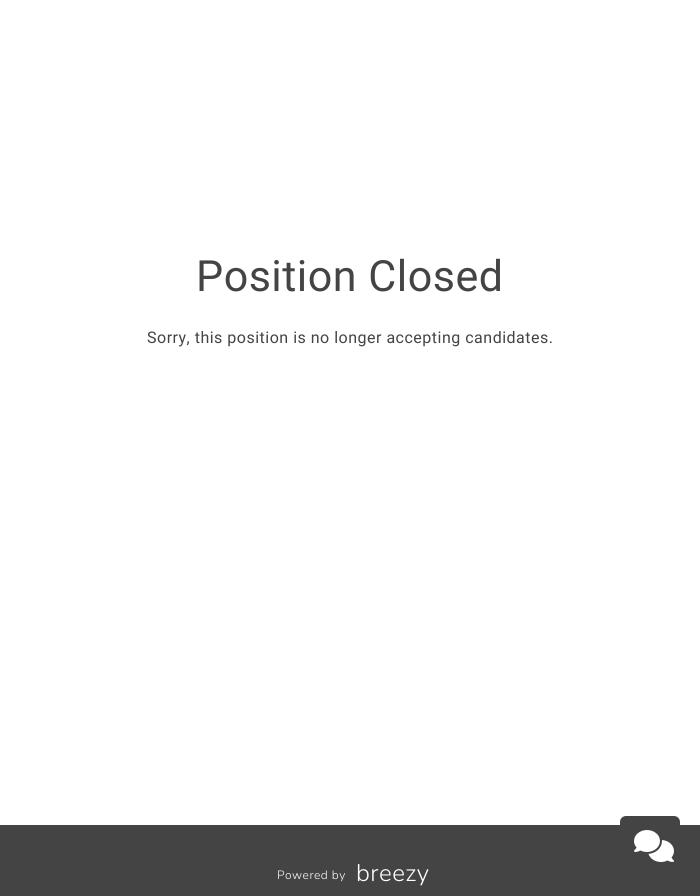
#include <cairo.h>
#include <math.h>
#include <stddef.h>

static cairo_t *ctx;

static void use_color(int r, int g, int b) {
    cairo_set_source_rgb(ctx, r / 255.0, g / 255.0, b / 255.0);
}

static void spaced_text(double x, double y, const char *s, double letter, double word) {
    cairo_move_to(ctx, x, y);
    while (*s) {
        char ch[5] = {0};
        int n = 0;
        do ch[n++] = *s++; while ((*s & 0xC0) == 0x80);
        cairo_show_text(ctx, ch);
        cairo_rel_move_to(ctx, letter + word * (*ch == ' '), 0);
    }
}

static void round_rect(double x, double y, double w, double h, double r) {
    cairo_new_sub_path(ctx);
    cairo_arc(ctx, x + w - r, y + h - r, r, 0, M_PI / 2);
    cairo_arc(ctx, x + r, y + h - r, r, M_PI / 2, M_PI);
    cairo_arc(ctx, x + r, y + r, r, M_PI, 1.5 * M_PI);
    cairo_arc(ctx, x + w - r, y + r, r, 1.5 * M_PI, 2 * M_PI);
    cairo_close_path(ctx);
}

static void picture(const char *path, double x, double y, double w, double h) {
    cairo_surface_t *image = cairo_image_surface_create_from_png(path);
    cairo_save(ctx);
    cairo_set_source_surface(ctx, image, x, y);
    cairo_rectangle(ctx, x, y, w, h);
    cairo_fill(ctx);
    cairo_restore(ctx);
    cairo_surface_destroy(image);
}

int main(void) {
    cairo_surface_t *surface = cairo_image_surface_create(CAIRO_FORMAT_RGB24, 700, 896);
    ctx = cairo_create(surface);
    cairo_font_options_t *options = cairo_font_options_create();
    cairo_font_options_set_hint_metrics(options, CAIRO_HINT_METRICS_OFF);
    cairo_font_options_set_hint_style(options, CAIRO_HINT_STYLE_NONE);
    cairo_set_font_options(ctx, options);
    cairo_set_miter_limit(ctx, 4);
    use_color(255, 255, 255);
    cairo_paint(ctx);
    cairo_select_font_face(ctx, "Roboto", CAIRO_FONT_SLANT_NORMAL, CAIRO_FONT_WEIGHT_NORMAL);
    cairo_set_font_size(ctx, 43);
    use_color(68, 68, 68);
    spaced_text(196, 291, "Position Closed", 0.5, 0);
    cairo_set_font_size(ctx, 16);
    spaced_text(147, 343, "Sorry, this position is no longer accepting candidates.", 0.5, 0);
    cairo_rectangle(ctx, 0, 825, 700, 71);
    cairo_fill(ctx);
    cairo_select_font_face(ctx, "Nunito Light", CAIRO_FONT_SLANT_NORMAL, CAIRO_FONT_WEIGHT_NORMAL);
    cairo_set_font_size(ctx, 12);
    use_color(255, 255, 255);
    spaced_text(277, 879, "Powered by", 0.5, 0);
    cairo_set_font_size(ctx, 24);
    spaced_text(356, 881, "breezy", 0.5, 0);
    use_color(68, 68, 68);
    round_rect(620, 816, 60, 60, 6);
    cairo_fill(ctx);
    picture("img1.png", 634, 830, 40, 32);
    cairo_surface_write_to_png(surface, "result.png");
    cairo_font_options_destroy(options);
    cairo_destroy(ctx);
    cairo_surface_destroy(surface);
    return 0;
}
